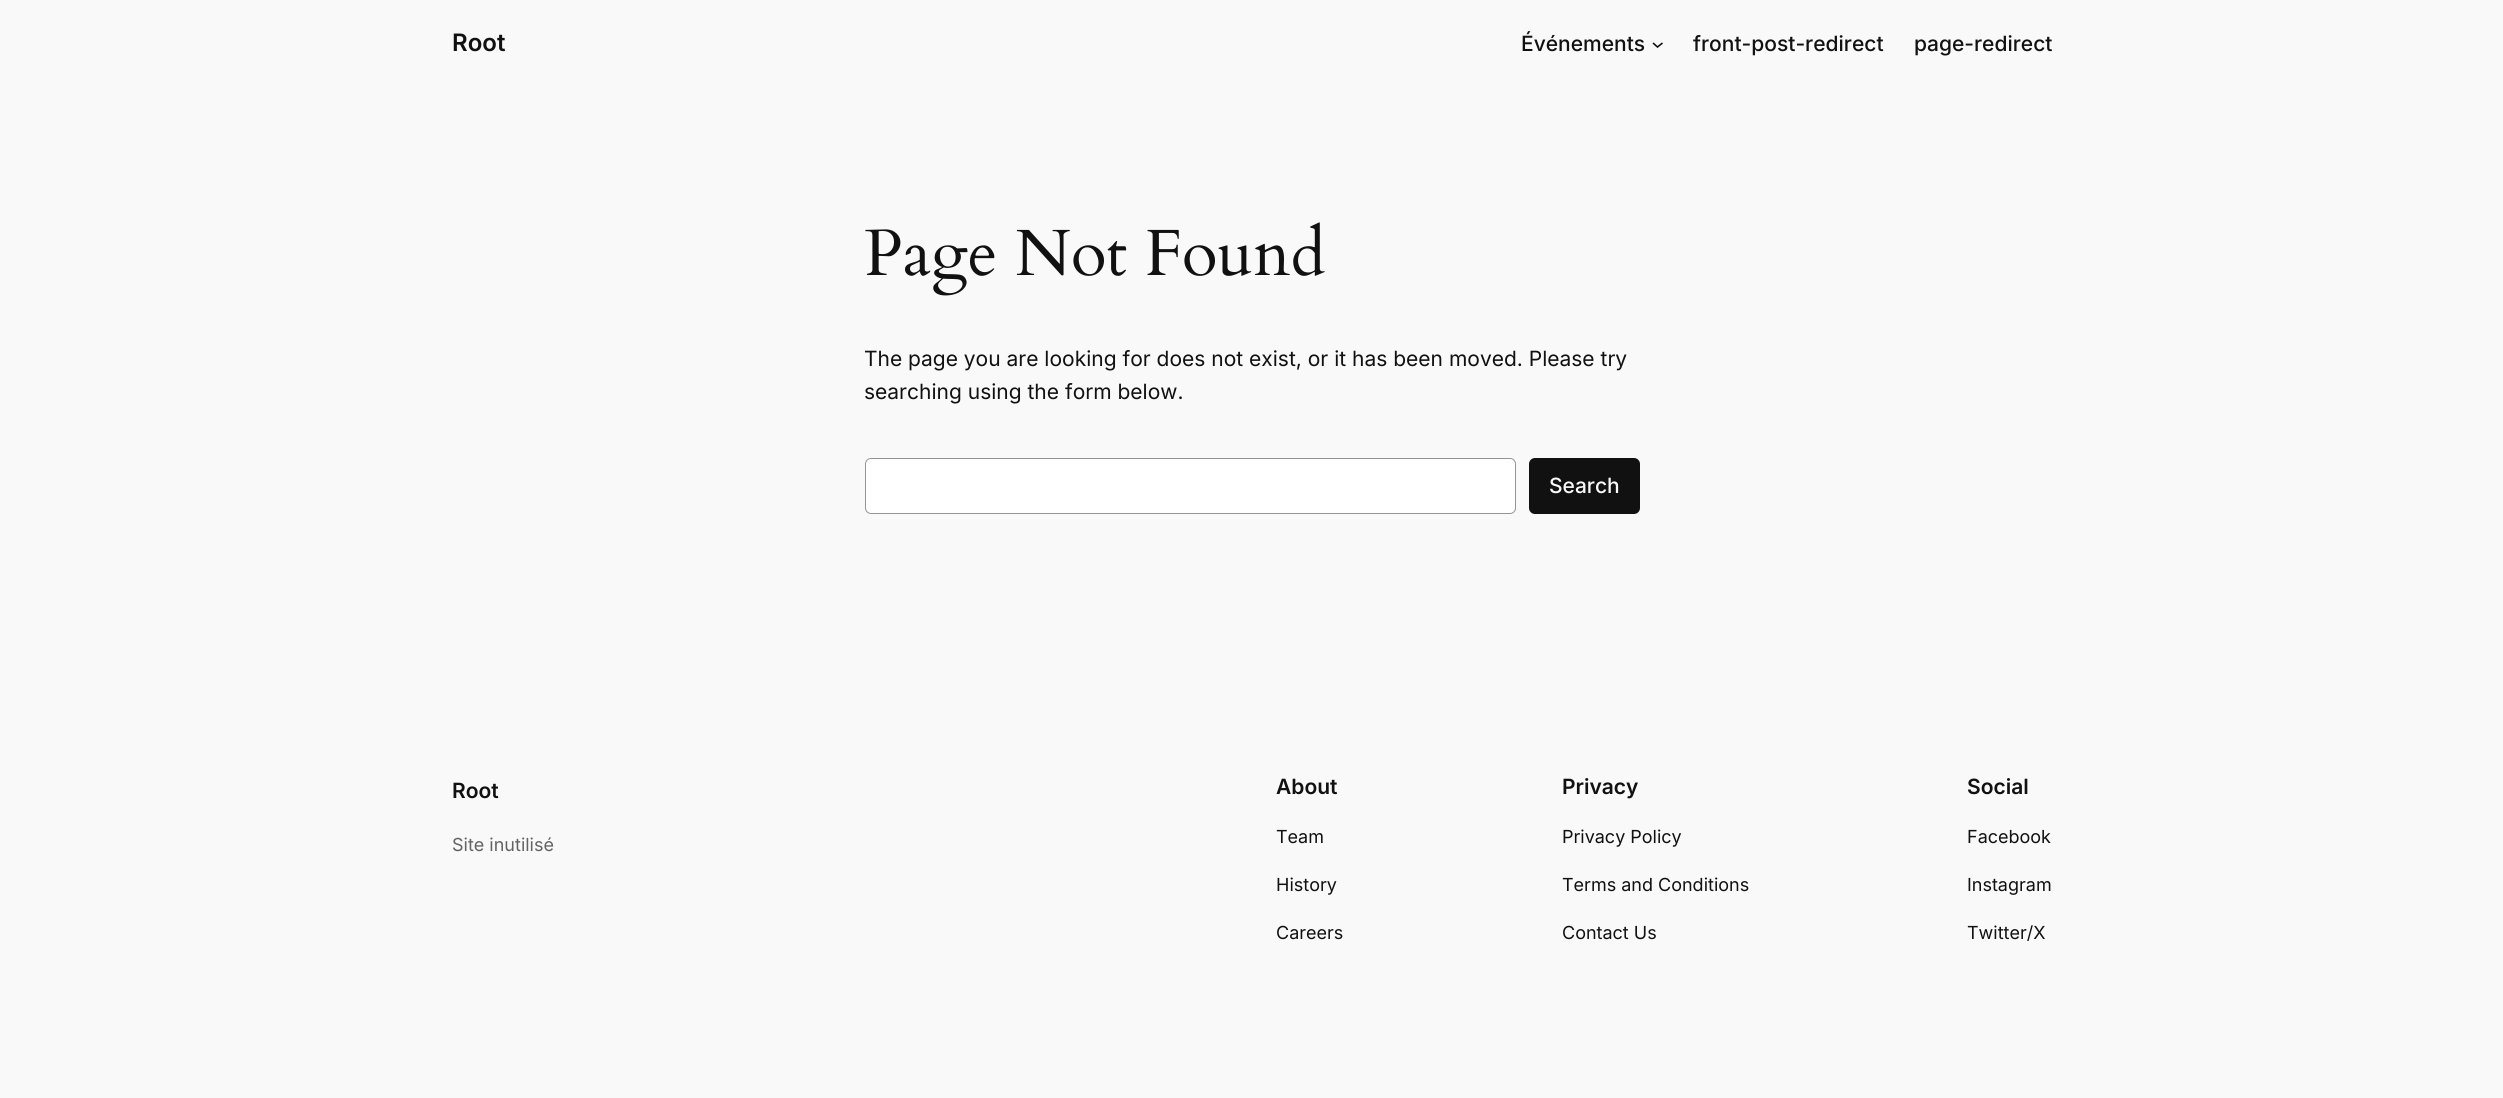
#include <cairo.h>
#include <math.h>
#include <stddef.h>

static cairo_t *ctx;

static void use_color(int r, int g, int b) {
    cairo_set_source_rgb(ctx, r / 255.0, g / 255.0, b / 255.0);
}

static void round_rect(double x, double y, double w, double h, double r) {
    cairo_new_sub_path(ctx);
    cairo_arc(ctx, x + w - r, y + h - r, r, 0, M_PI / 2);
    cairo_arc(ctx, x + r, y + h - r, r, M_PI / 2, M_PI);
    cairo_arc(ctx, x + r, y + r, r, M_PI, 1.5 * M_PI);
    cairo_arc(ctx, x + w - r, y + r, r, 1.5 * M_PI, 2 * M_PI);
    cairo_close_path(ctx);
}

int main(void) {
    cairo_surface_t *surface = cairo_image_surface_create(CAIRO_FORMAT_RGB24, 2503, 1098);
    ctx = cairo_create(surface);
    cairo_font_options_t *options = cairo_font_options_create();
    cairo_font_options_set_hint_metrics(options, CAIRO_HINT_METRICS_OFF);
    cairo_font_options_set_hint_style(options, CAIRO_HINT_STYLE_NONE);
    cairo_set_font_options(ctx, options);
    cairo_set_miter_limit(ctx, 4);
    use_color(249, 249, 249);
    cairo_paint(ctx);
    cairo_select_font_face(ctx, "Inter SemiBold", CAIRO_FONT_SLANT_NORMAL, CAIRO_FONT_WEIGHT_NORMAL);
    cairo_set_font_size(ctx, 24);
    use_color(17, 17, 17);
    cairo_move_to(ctx, 452, 51);
    cairo_show_text(ctx, "Root");
    cairo_select_font_face(ctx, "Inter Medium", CAIRO_FONT_SLANT_NORMAL, CAIRO_FONT_WEIGHT_NORMAL);
    cairo_set_font_size(ctx, 21);
    cairo_move_to(ctx, 1521, 51);
    cairo_show_text(ctx, "Événements");
    cairo_new_path(ctx);
    cairo_move_to(ctx, 1653, 43);
    cairo_line_to(ctx, 1657.5, 47);
    cairo_line_to(ctx, 1662.5, 43);
    cairo_set_line_width(ctx, 1.6);
    cairo_stroke(ctx);
    cairo_move_to(ctx, 1693, 51);
    cairo_show_text(ctx, "front-post-redirect");
    cairo_move_to(ctx, 1914, 51);
    cairo_show_text(ctx, "page-redirect");
    cairo_select_font_face(ctx, "Cardo", CAIRO_FONT_SLANT_NORMAL, CAIRO_FONT_WEIGHT_NORMAL);
    cairo_set_font_size(ctx, 65.5);
    cairo_move_to(ctx, 864, 275);
    cairo_show_text(ctx, "Page Not Found");
    cairo_select_font_face(ctx, "Inter", CAIRO_FONT_SLANT_NORMAL, CAIRO_FONT_WEIGHT_NORMAL);
    cairo_set_font_size(ctx, 21);
    cairo_move_to(ctx, 864, 366);
    cairo_show_text(ctx, "The page you are looking for does not exist, or it has been moved. Please try");
    cairo_move_to(ctx, 864, 399);
    cairo_show_text(ctx, "searching using the form below.");
    use_color(255, 255, 255);
    round_rect(865.5, 458.5, 650, 55, 5.5);
    cairo_fill_preserve(ctx);
    use_color(148, 148, 148);
    cairo_set_line_width(ctx, 1);
    cairo_stroke(ctx);
    use_color(17, 17, 17);
    round_rect(1529, 458, 111, 56, 6);
    cairo_fill(ctx);
    cairo_select_font_face(ctx, "Inter Medium", CAIRO_FONT_SLANT_NORMAL, CAIRO_FONT_WEIGHT_NORMAL);
    use_color(249, 249, 249);
    cairo_move_to(ctx, 1549, 493);
    cairo_show_text(ctx, "Search");
    cairo_select_font_face(ctx, "Inter SemiBold", CAIRO_FONT_SLANT_NORMAL, CAIRO_FONT_WEIGHT_NORMAL);
    use_color(17, 17, 17);
    cairo_move_to(ctx, 452, 798);
    cairo_show_text(ctx, "Root");
    cairo_select_font_face(ctx, "Inter", CAIRO_FONT_SLANT_NORMAL, CAIRO_FONT_WEIGHT_NORMAL);
    cairo_set_font_size(ctx, 18);
    use_color(99, 99, 99);
    cairo_move_to(ctx, 452, 851);
    cairo_show_text(ctx, "Site inutilisé");
    cairo_select_font_face(ctx, "Inter SemiBold", CAIRO_FONT_SLANT_NORMAL, CAIRO_FONT_WEIGHT_NORMAL);
    cairo_set_font_size(ctx, 21);
    use_color(17, 17, 17);
    cairo_move_to(ctx, 1276, 794);
    cairo_show_text(ctx, "About");
    cairo_select_font_face(ctx, "Inter", CAIRO_FONT_SLANT_NORMAL, CAIRO_FONT_WEIGHT_NORMAL);
    cairo_set_font_size(ctx, 18);
    cairo_move_to(ctx, 1276, 843);
    cairo_show_text(ctx, "Team");
    cairo_move_to(ctx, 1276, 891);
    cairo_show_text(ctx, "History");
    cairo_move_to(ctx, 1276, 939);
    cairo_show_text(ctx, "Careers");
    cairo_select_font_face(ctx, "Inter SemiBold", CAIRO_FONT_SLANT_NORMAL, CAIRO_FONT_WEIGHT_NORMAL);
    cairo_set_font_size(ctx, 21);
    cairo_move_to(ctx, 1562, 794);
    cairo_show_text(ctx, "Privacy");
    cairo_select_font_face(ctx, "Inter", CAIRO_FONT_SLANT_NORMAL, CAIRO_FONT_WEIGHT_NORMAL);
    cairo_set_font_size(ctx, 18);
    cairo_move_to(ctx, 1562, 843);
    cairo_show_text(ctx, "Privacy Policy");
    cairo_move_to(ctx, 1562, 891);
    cairo_show_text(ctx, "Terms and Conditions");
    cairo_move_to(ctx, 1562, 939);
    cairo_show_text(ctx, "Contact Us");
    cairo_select_font_face(ctx, "Inter SemiBold", CAIRO_FONT_SLANT_NORMAL, CAIRO_FONT_WEIGHT_NORMAL);
    cairo_set_font_size(ctx, 21);
    cairo_move_to(ctx, 1967, 794);
    cairo_show_text(ctx, "Social");
    cairo_select_font_face(ctx, "Inter", CAIRO_FONT_SLANT_NORMAL, CAIRO_FONT_WEIGHT_NORMAL);
    cairo_set_font_size(ctx, 18);
    cairo_move_to(ctx, 1967, 843);
    cairo_show_text(ctx, "Facebook");
    cairo_move_to(ctx, 1967, 891);
    cairo_show_text(ctx, "Instagram");
    cairo_move_to(ctx, 1967, 939);
    cairo_show_text(ctx, "Twitter/X");
    cairo_surface_write_to_png(surface, "result.png");
    cairo_font_options_destroy(options);
    cairo_destroy(ctx);
    cairo_surface_destroy(surface);
    return 0;
}
